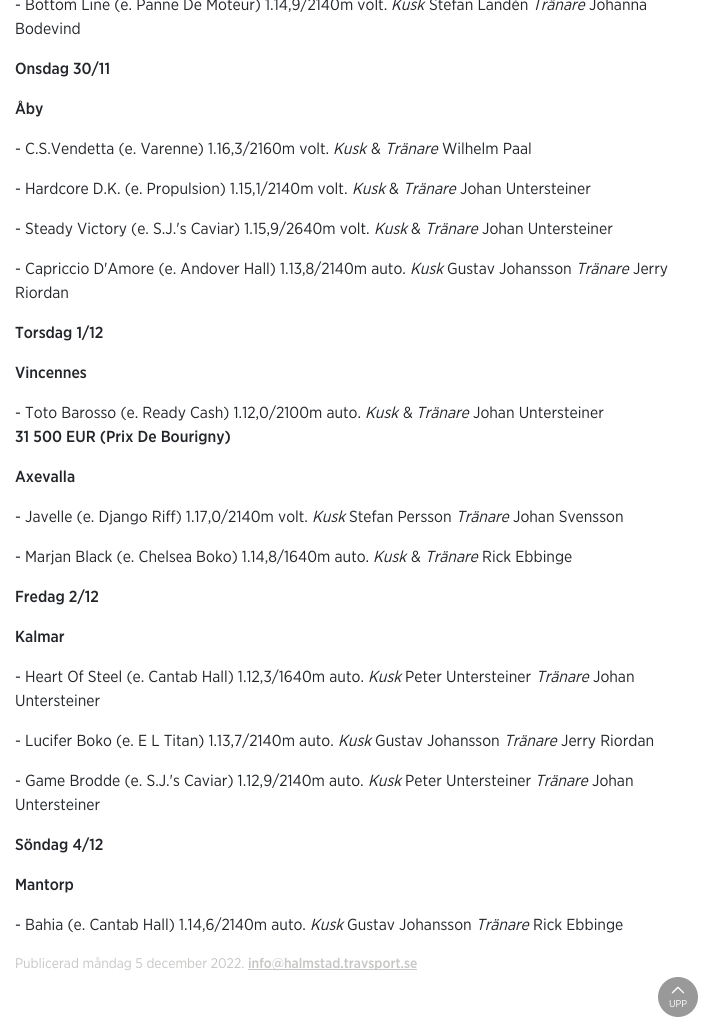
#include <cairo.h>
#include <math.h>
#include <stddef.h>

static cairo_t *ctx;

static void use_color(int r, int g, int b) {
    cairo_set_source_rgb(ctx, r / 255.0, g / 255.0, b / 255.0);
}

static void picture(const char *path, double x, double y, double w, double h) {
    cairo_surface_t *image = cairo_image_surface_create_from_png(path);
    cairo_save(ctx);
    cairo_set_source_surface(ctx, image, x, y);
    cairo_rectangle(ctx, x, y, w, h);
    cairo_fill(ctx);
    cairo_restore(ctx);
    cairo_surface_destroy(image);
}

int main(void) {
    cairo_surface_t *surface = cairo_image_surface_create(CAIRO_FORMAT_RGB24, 708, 1027);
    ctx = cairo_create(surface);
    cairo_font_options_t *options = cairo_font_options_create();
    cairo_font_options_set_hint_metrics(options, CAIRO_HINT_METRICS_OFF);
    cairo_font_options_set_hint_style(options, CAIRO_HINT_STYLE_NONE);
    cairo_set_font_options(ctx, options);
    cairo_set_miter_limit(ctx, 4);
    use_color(255, 255, 255);
    cairo_paint(ctx);
    cairo_select_font_face(ctx, "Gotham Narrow", CAIRO_FONT_SLANT_NORMAL, CAIRO_FONT_WEIGHT_NORMAL);
    cairo_set_font_size(ctx, 16);
    use_color(34, 37, 42);
    cairo_move_to(ctx, 15, 10);
    cairo_show_text(ctx, "- Bottom Line (e. Panne De Moteur) 1.14,9/2140m volt.");
    cairo_select_font_face(ctx, "Gotham Narrow", CAIRO_FONT_SLANT_ITALIC, CAIRO_FONT_WEIGHT_NORMAL);
    cairo_move_to(ctx, 391, 10);
    cairo_show_text(ctx, "Kusk");
    cairo_select_font_face(ctx, "Gotham Narrow", CAIRO_FONT_SLANT_NORMAL, CAIRO_FONT_WEIGHT_NORMAL);
    cairo_move_to(ctx, 429, 10);
    cairo_show_text(ctx, "Stefan Landén");
    cairo_select_font_face(ctx, "Gotham Narrow", CAIRO_FONT_SLANT_ITALIC, CAIRO_FONT_WEIGHT_NORMAL);
    cairo_move_to(ctx, 532, 10);
    cairo_show_text(ctx, "Tränare");
    cairo_select_font_face(ctx, "Gotham Narrow", CAIRO_FONT_SLANT_NORMAL, CAIRO_FONT_WEIGHT_NORMAL);
    cairo_move_to(ctx, 589, 10);
    cairo_show_text(ctx, "Johanna");
    cairo_move_to(ctx, 15, 34);
    cairo_show_text(ctx, "Bodevind");
    cairo_select_font_face(ctx, "Gotham Narrow Medium", CAIRO_FONT_SLANT_NORMAL, CAIRO_FONT_WEIGHT_NORMAL);
    cairo_move_to(ctx, 15, 74);
    cairo_show_text(ctx, "Onsdag 30/11");
    cairo_move_to(ctx, 15, 114);
    cairo_show_text(ctx, "Åby");
    cairo_select_font_face(ctx, "Gotham Narrow", CAIRO_FONT_SLANT_NORMAL, CAIRO_FONT_WEIGHT_NORMAL);
    cairo_move_to(ctx, 15, 154);
    cairo_show_text(ctx, "- C.S.Vendetta (e. Varenne) 1.16,3/2160m volt.");
    cairo_select_font_face(ctx, "Gotham Narrow", CAIRO_FONT_SLANT_ITALIC, CAIRO_FONT_WEIGHT_NORMAL);
    cairo_move_to(ctx, 333, 154);
    cairo_show_text(ctx, "Kusk");
    cairo_select_font_face(ctx, "Gotham Narrow", CAIRO_FONT_SLANT_NORMAL, CAIRO_FONT_WEIGHT_NORMAL);
    cairo_move_to(ctx, 371, 154);
    cairo_show_text(ctx, "&");
    cairo_select_font_face(ctx, "Gotham Narrow", CAIRO_FONT_SLANT_ITALIC, CAIRO_FONT_WEIGHT_NORMAL);
    cairo_move_to(ctx, 385, 154);
    cairo_show_text(ctx, "Tränare");
    cairo_select_font_face(ctx, "Gotham Narrow", CAIRO_FONT_SLANT_NORMAL, CAIRO_FONT_WEIGHT_NORMAL);
    cairo_move_to(ctx, 442, 154);
    cairo_show_text(ctx, "Wilhelm Paal");
    cairo_move_to(ctx, 15, 194);
    cairo_show_text(ctx, "- Hardcore D.K. (e. Propulsion) 1.15,1/2140m volt.");
    cairo_select_font_face(ctx, "Gotham Narrow", CAIRO_FONT_SLANT_ITALIC, CAIRO_FONT_WEIGHT_NORMAL);
    cairo_move_to(ctx, 352, 194);
    cairo_show_text(ctx, "Kusk");
    cairo_select_font_face(ctx, "Gotham Narrow", CAIRO_FONT_SLANT_NORMAL, CAIRO_FONT_WEIGHT_NORMAL);
    cairo_move_to(ctx, 389, 194);
    cairo_show_text(ctx, "&");
    cairo_select_font_face(ctx, "Gotham Narrow", CAIRO_FONT_SLANT_ITALIC, CAIRO_FONT_WEIGHT_NORMAL);
    cairo_move_to(ctx, 403, 194);
    cairo_show_text(ctx, "Tränare");
    cairo_select_font_face(ctx, "Gotham Narrow", CAIRO_FONT_SLANT_NORMAL, CAIRO_FONT_WEIGHT_NORMAL);
    cairo_move_to(ctx, 460, 194);
    cairo_show_text(ctx, "Johan Untersteiner");
    cairo_move_to(ctx, 15, 234);
    cairo_show_text(ctx, "- Steady Victory (e. S.J.'s Caviar) 1.15,9/2640m volt.");
    cairo_select_font_face(ctx, "Gotham Narrow", CAIRO_FONT_SLANT_ITALIC, CAIRO_FONT_WEIGHT_NORMAL);
    cairo_move_to(ctx, 374, 234);
    cairo_show_text(ctx, "Kusk");
    cairo_select_font_face(ctx, "Gotham Narrow", CAIRO_FONT_SLANT_NORMAL, CAIRO_FONT_WEIGHT_NORMAL);
    cairo_move_to(ctx, 411, 234);
    cairo_show_text(ctx, "&");
    cairo_select_font_face(ctx, "Gotham Narrow", CAIRO_FONT_SLANT_ITALIC, CAIRO_FONT_WEIGHT_NORMAL);
    cairo_move_to(ctx, 425, 234);
    cairo_show_text(ctx, "Tränare");
    cairo_select_font_face(ctx, "Gotham Narrow", CAIRO_FONT_SLANT_NORMAL, CAIRO_FONT_WEIGHT_NORMAL);
    cairo_move_to(ctx, 482, 234);
    cairo_show_text(ctx, "Johan Untersteiner");
    cairo_move_to(ctx, 15, 274);
    cairo_show_text(ctx, "- Capriccio D'Amore (e. Andover Hall) 1.13,8/2140m auto.");
    cairo_select_font_face(ctx, "Gotham Narrow", CAIRO_FONT_SLANT_ITALIC, CAIRO_FONT_WEIGHT_NORMAL);
    cairo_move_to(ctx, 410, 274);
    cairo_show_text(ctx, "Kusk");
    cairo_select_font_face(ctx, "Gotham Narrow", CAIRO_FONT_SLANT_NORMAL, CAIRO_FONT_WEIGHT_NORMAL);
    cairo_move_to(ctx, 447, 274);
    cairo_show_text(ctx, "Gustav Johansson");
    cairo_select_font_face(ctx, "Gotham Narrow", CAIRO_FONT_SLANT_ITALIC, CAIRO_FONT_WEIGHT_NORMAL);
    cairo_move_to(ctx, 576, 274);
    cairo_show_text(ctx, "Tränare");
    cairo_select_font_face(ctx, "Gotham Narrow", CAIRO_FONT_SLANT_NORMAL, CAIRO_FONT_WEIGHT_NORMAL);
    cairo_move_to(ctx, 633, 274);
    cairo_show_text(ctx, "Jerry");
    cairo_move_to(ctx, 15, 298);
    cairo_show_text(ctx, "Riordan");
    cairo_select_font_face(ctx, "Gotham Narrow Medium", CAIRO_FONT_SLANT_NORMAL, CAIRO_FONT_WEIGHT_NORMAL);
    cairo_move_to(ctx, 15, 338);
    cairo_show_text(ctx, "Torsdag 1/12");
    cairo_move_to(ctx, 15, 378);
    cairo_show_text(ctx, "Vincennes");
    cairo_select_font_face(ctx, "Gotham Narrow", CAIRO_FONT_SLANT_NORMAL, CAIRO_FONT_WEIGHT_NORMAL);
    cairo_move_to(ctx, 15, 418);
    cairo_show_text(ctx, "- Toto Barosso (e. Ready Cash) 1.12,0/2100m auto.");
    cairo_select_font_face(ctx, "Gotham Narrow", CAIRO_FONT_SLANT_ITALIC, CAIRO_FONT_WEIGHT_NORMAL);
    cairo_move_to(ctx, 365, 418);
    cairo_show_text(ctx, "Kusk");
    cairo_select_font_face(ctx, "Gotham Narrow", CAIRO_FONT_SLANT_NORMAL, CAIRO_FONT_WEIGHT_NORMAL);
    cairo_move_to(ctx, 403, 418);
    cairo_show_text(ctx, "&");
    cairo_select_font_face(ctx, "Gotham Narrow", CAIRO_FONT_SLANT_ITALIC, CAIRO_FONT_WEIGHT_NORMAL);
    cairo_move_to(ctx, 416, 418);
    cairo_show_text(ctx, "Tränare");
    cairo_select_font_face(ctx, "Gotham Narrow", CAIRO_FONT_SLANT_NORMAL, CAIRO_FONT_WEIGHT_NORMAL);
    cairo_move_to(ctx, 473, 418);
    cairo_show_text(ctx, "Johan Untersteiner");
    cairo_select_font_face(ctx, "Gotham Narrow Medium", CAIRO_FONT_SLANT_NORMAL, CAIRO_FONT_WEIGHT_NORMAL);
    cairo_move_to(ctx, 15, 442);
    cairo_show_text(ctx, "31 500 EUR (Prix De Bourigny)");
    cairo_move_to(ctx, 15, 482);
    cairo_show_text(ctx, "Axevalla");
    cairo_select_font_face(ctx, "Gotham Narrow", CAIRO_FONT_SLANT_NORMAL, CAIRO_FONT_WEIGHT_NORMAL);
    cairo_move_to(ctx, 15, 522);
    cairo_show_text(ctx, "- Javelle (e. Django Riff) 1.17,0/2140m volt.");
    cairo_select_font_face(ctx, "Gotham Narrow", CAIRO_FONT_SLANT_ITALIC, CAIRO_FONT_WEIGHT_NORMAL);
    cairo_move_to(ctx, 312, 522);
    cairo_show_text(ctx, "Kusk");
    cairo_select_font_face(ctx, "Gotham Narrow", CAIRO_FONT_SLANT_NORMAL, CAIRO_FONT_WEIGHT_NORMAL);
    cairo_move_to(ctx, 349, 522);
    cairo_show_text(ctx, "Stefan Persson");
    cairo_select_font_face(ctx, "Gotham Narrow", CAIRO_FONT_SLANT_ITALIC, CAIRO_FONT_WEIGHT_NORMAL);
    cairo_move_to(ctx, 456, 522);
    cairo_show_text(ctx, "Tränare");
    cairo_select_font_face(ctx, "Gotham Narrow", CAIRO_FONT_SLANT_NORMAL, CAIRO_FONT_WEIGHT_NORMAL);
    cairo_move_to(ctx, 513, 522);
    cairo_show_text(ctx, "Johan Svensson");
    cairo_move_to(ctx, 15, 562);
    cairo_show_text(ctx, "- Marjan Black (e. Chelsea Boko) 1.14,8/1640m auto.");
    cairo_select_font_face(ctx, "Gotham Narrow", CAIRO_FONT_SLANT_ITALIC, CAIRO_FONT_WEIGHT_NORMAL);
    cairo_move_to(ctx, 373, 562);
    cairo_show_text(ctx, "Kusk");
    cairo_select_font_face(ctx, "Gotham Narrow", CAIRO_FONT_SLANT_NORMAL, CAIRO_FONT_WEIGHT_NORMAL);
    cairo_move_to(ctx, 411, 562);
    cairo_show_text(ctx, "&");
    cairo_select_font_face(ctx, "Gotham Narrow", CAIRO_FONT_SLANT_ITALIC, CAIRO_FONT_WEIGHT_NORMAL);
    cairo_move_to(ctx, 425, 562);
    cairo_show_text(ctx, "Tränare");
    cairo_select_font_face(ctx, "Gotham Narrow", CAIRO_FONT_SLANT_NORMAL, CAIRO_FONT_WEIGHT_NORMAL);
    cairo_move_to(ctx, 482, 562);
    cairo_show_text(ctx, "Rick Ebbinge");
    cairo_select_font_face(ctx, "Gotham Narrow Medium", CAIRO_FONT_SLANT_NORMAL, CAIRO_FONT_WEIGHT_NORMAL);
    cairo_move_to(ctx, 15, 602);
    cairo_show_text(ctx, "Fredag 2/12");
    cairo_move_to(ctx, 15, 642);
    cairo_show_text(ctx, "Kalmar");
    cairo_select_font_face(ctx, "Gotham Narrow", CAIRO_FONT_SLANT_NORMAL, CAIRO_FONT_WEIGHT_NORMAL);
    cairo_move_to(ctx, 15, 682);
    cairo_show_text(ctx, "- Heart Of Steel (e. Cantab Hall) 1.12,3/1640m auto.");
    cairo_select_font_face(ctx, "Gotham Narrow", CAIRO_FONT_SLANT_ITALIC, CAIRO_FONT_WEIGHT_NORMAL);
    cairo_move_to(ctx, 368, 682);
    cairo_show_text(ctx, "Kusk");
    cairo_select_font_face(ctx, "Gotham Narrow", CAIRO_FONT_SLANT_NORMAL, CAIRO_FONT_WEIGHT_NORMAL);
    cairo_move_to(ctx, 405, 682);
    cairo_show_text(ctx, "Peter Untersteiner");
    cairo_select_font_face(ctx, "Gotham Narrow", CAIRO_FONT_SLANT_ITALIC, CAIRO_FONT_WEIGHT_NORMAL);
    cairo_move_to(ctx, 536, 682);
    cairo_show_text(ctx, "Tränare");
    cairo_select_font_face(ctx, "Gotham Narrow", CAIRO_FONT_SLANT_NORMAL, CAIRO_FONT_WEIGHT_NORMAL);
    cairo_move_to(ctx, 593, 682);
    cairo_show_text(ctx, "Johan");
    cairo_move_to(ctx, 15, 706);
    cairo_show_text(ctx, "Untersteiner");
    cairo_move_to(ctx, 15, 746);
    cairo_show_text(ctx, "- Lucifer Boko (e. E L Titan) 1.13,7/2140m auto.");
    cairo_select_font_face(ctx, "Gotham Narrow", CAIRO_FONT_SLANT_ITALIC, CAIRO_FONT_WEIGHT_NORMAL);
    cairo_move_to(ctx, 338, 746);
    cairo_show_text(ctx, "Kusk");
    cairo_select_font_face(ctx, "Gotham Narrow", CAIRO_FONT_SLANT_NORMAL, CAIRO_FONT_WEIGHT_NORMAL);
    cairo_move_to(ctx, 375, 746);
    cairo_show_text(ctx, "Gustav Johansson");
    cairo_select_font_face(ctx, "Gotham Narrow", CAIRO_FONT_SLANT_ITALIC, CAIRO_FONT_WEIGHT_NORMAL);
    cairo_move_to(ctx, 504, 746);
    cairo_show_text(ctx, "Tränare");
    cairo_select_font_face(ctx, "Gotham Narrow", CAIRO_FONT_SLANT_NORMAL, CAIRO_FONT_WEIGHT_NORMAL);
    cairo_move_to(ctx, 561, 746);
    cairo_show_text(ctx, "Jerry Riordan");
    cairo_move_to(ctx, 15, 786);
    cairo_show_text(ctx, "- Game Brodde (e. S.J.'s Caviar) 1.12,9/2140m auto.");
    cairo_select_font_face(ctx, "Gotham Narrow", CAIRO_FONT_SLANT_ITALIC, CAIRO_FONT_WEIGHT_NORMAL);
    cairo_move_to(ctx, 368, 786);
    cairo_show_text(ctx, "Kusk");
    cairo_select_font_face(ctx, "Gotham Narrow", CAIRO_FONT_SLANT_NORMAL, CAIRO_FONT_WEIGHT_NORMAL);
    cairo_move_to(ctx, 405, 786);
    cairo_show_text(ctx, "Peter Untersteiner");
    cairo_select_font_face(ctx, "Gotham Narrow", CAIRO_FONT_SLANT_ITALIC, CAIRO_FONT_WEIGHT_NORMAL);
    cairo_move_to(ctx, 535, 786);
    cairo_show_text(ctx, "Tränare");
    cairo_select_font_face(ctx, "Gotham Narrow", CAIRO_FONT_SLANT_NORMAL, CAIRO_FONT_WEIGHT_NORMAL);
    cairo_move_to(ctx, 592, 786);
    cairo_show_text(ctx, "Johan");
    cairo_move_to(ctx, 15, 810);
    cairo_show_text(ctx, "Untersteiner");
    cairo_select_font_face(ctx, "Gotham Narrow Medium", CAIRO_FONT_SLANT_NORMAL, CAIRO_FONT_WEIGHT_NORMAL);
    cairo_move_to(ctx, 15, 850);
    cairo_show_text(ctx, "Söndag 4/12");
    cairo_move_to(ctx, 15, 890);
    cairo_show_text(ctx, "Mantorp");
    cairo_select_font_face(ctx, "Gotham Narrow", CAIRO_FONT_SLANT_NORMAL, CAIRO_FONT_WEIGHT_NORMAL);
    cairo_move_to(ctx, 15, 930);
    cairo_show_text(ctx, "- Bahia (e. Cantab Hall) 1.14,6/2140m auto.");
    cairo_select_font_face(ctx, "Gotham Narrow", CAIRO_FONT_SLANT_ITALIC, CAIRO_FONT_WEIGHT_NORMAL);
    cairo_move_to(ctx, 310, 930);
    cairo_show_text(ctx, "Kusk");
    cairo_select_font_face(ctx, "Gotham Narrow", CAIRO_FONT_SLANT_NORMAL, CAIRO_FONT_WEIGHT_NORMAL);
    cairo_move_to(ctx, 347, 930);
    cairo_show_text(ctx, "Gustav Johansson");
    cairo_select_font_face(ctx, "Gotham Narrow", CAIRO_FONT_SLANT_ITALIC, CAIRO_FONT_WEIGHT_NORMAL);
    cairo_move_to(ctx, 476, 930);
    cairo_show_text(ctx, "Tränare");
    cairo_select_font_face(ctx, "Gotham Narrow", CAIRO_FONT_SLANT_NORMAL, CAIRO_FONT_WEIGHT_NORMAL);
    cairo_move_to(ctx, 533, 930);
    cairo_show_text(ctx, "Rick Ebbinge");
    cairo_set_font_size(ctx, 14);
    use_color(198, 198, 197);
    cairo_move_to(ctx, 15, 968);
    cairo_show_text(ctx, "Publicerad måndag 5 december 2022.");
    cairo_rectangle(ctx, 248, 969, 169, 1);
    cairo_fill(ctx);
    cairo_select_font_face(ctx, "Gotham Narrow Medium", CAIRO_FONT_SLANT_NORMAL, CAIRO_FONT_WEIGHT_NORMAL);
    cairo_move_to(ctx, 248, 968);
    cairo_show_text(ctx, "info@halmstad.travsport.se");
    use_color(153, 153, 153);
    cairo_new_path(ctx);
    cairo_arc(ctx, 678, 997, 20, 0, 2 * M_PI);
    cairo_fill(ctx);
    picture("img1.png", 671, 986, 14, 8);
    cairo_select_font_face(ctx, "Gotham Narrow", CAIRO_FONT_SLANT_NORMAL, CAIRO_FONT_WEIGHT_NORMAL);
    cairo_set_font_size(ctx, 10);
    use_color(255, 255, 255);
    cairo_move_to(ctx, 669, 1007);
    cairo_show_text(ctx, "UPP");
    cairo_surface_write_to_png(surface, "result.png");
    cairo_font_options_destroy(options);
    cairo_destroy(ctx);
    cairo_surface_destroy(surface);
    return 0;
}
